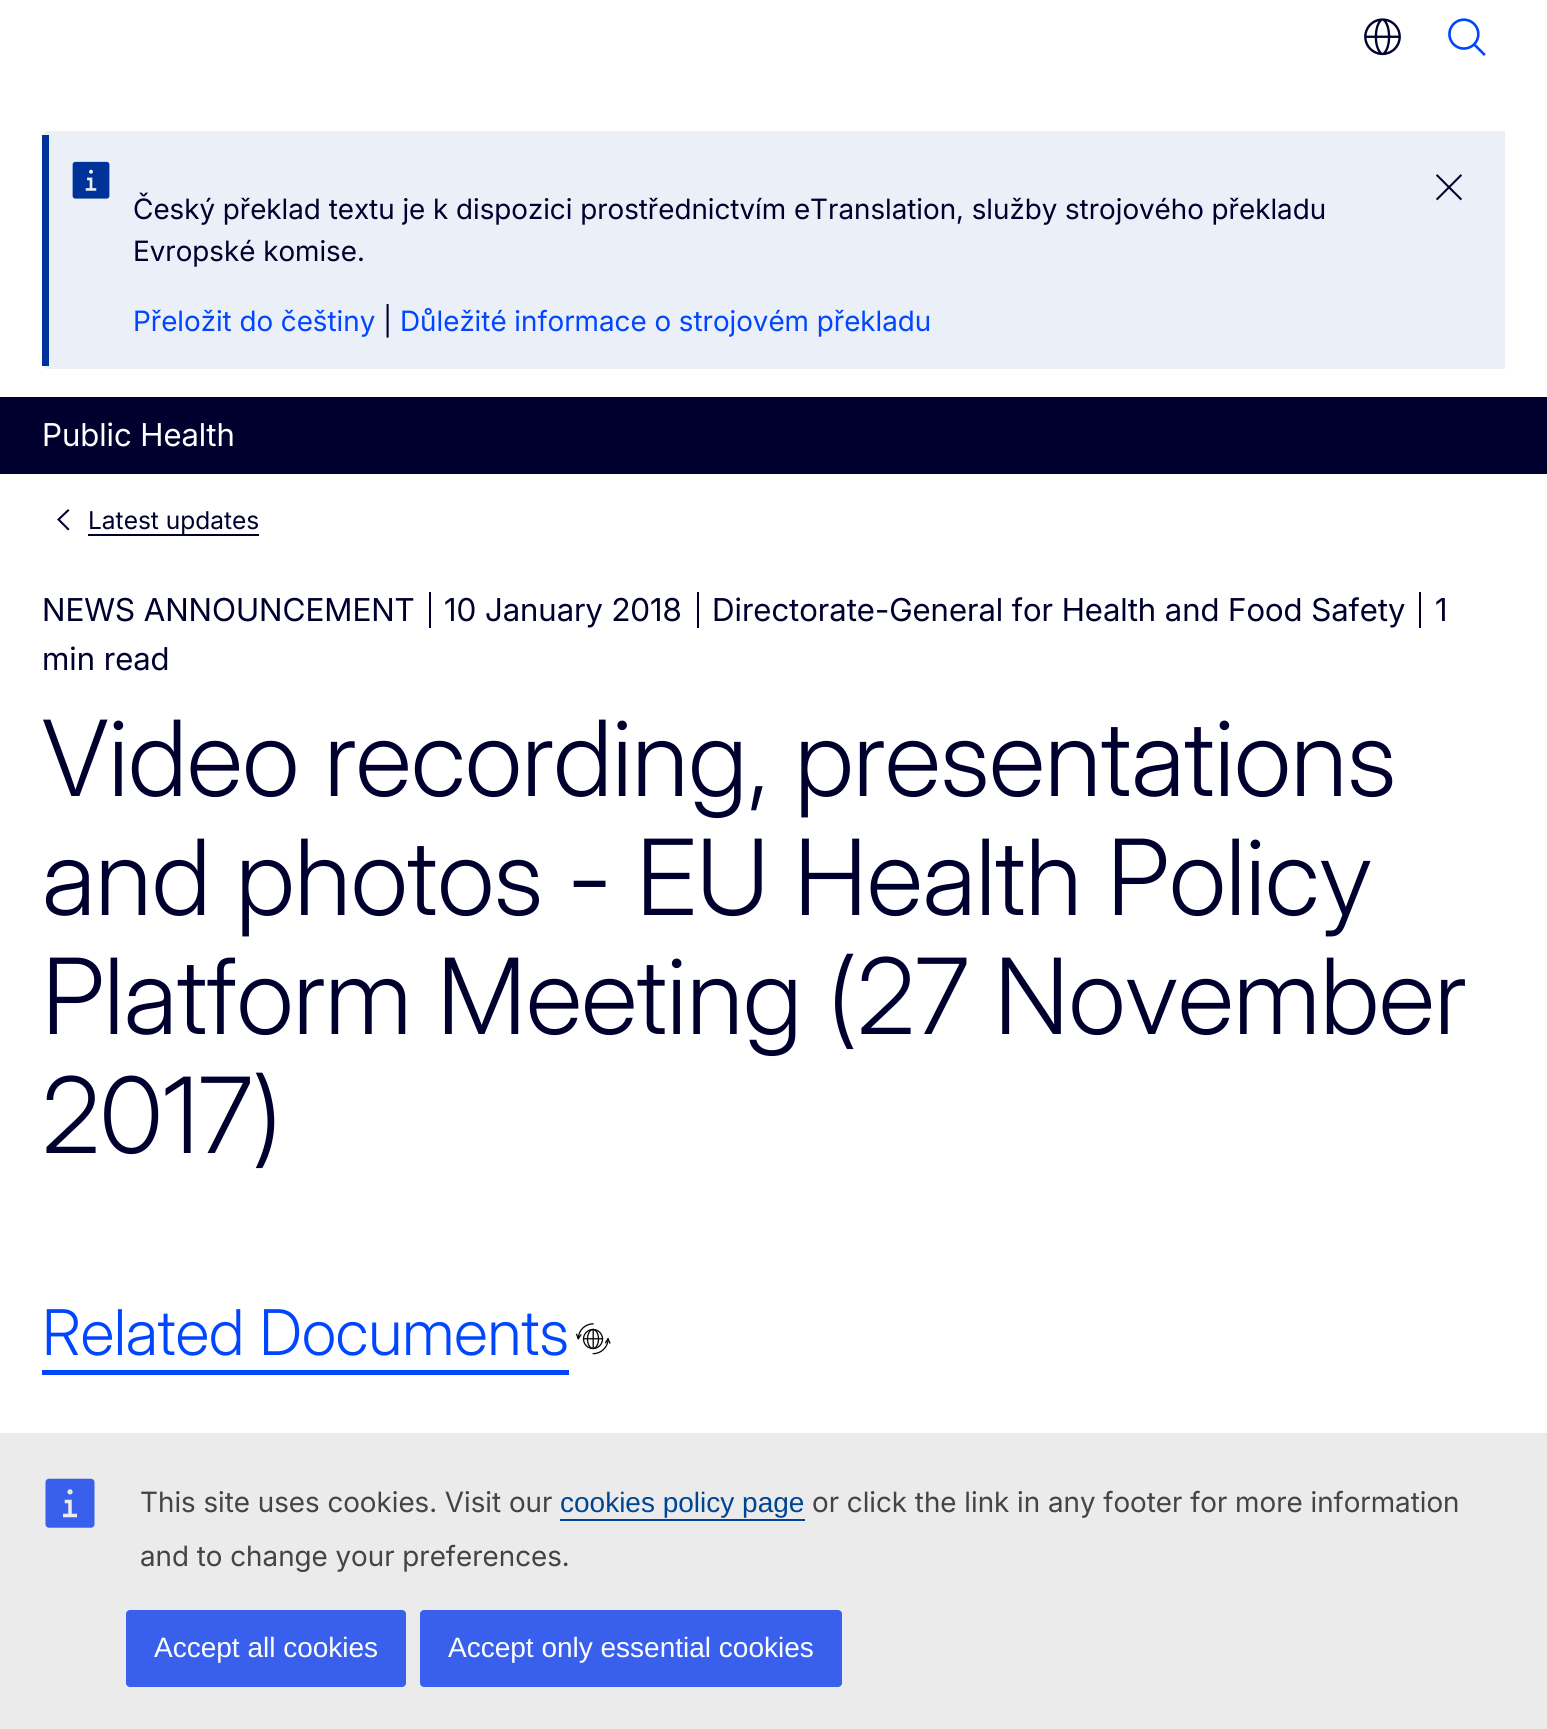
#include <cairo.h>
#include <math.h>
#include <stddef.h>

static cairo_t *ctx;

static void use_color(int r, int g, int b) {
    cairo_set_source_rgb(ctx, r / 255.0, g / 255.0, b / 255.0);
}

static void round_rect(double x, double y, double w, double h, double r) {
    cairo_new_sub_path(ctx);
    cairo_arc(ctx, x + w - r, y + h - r, r, 0, M_PI / 2);
    cairo_arc(ctx, x + r, y + h - r, r, M_PI / 2, M_PI);
    cairo_arc(ctx, x + r, y + r, r, M_PI, 1.5 * M_PI);
    cairo_arc(ctx, x + w - r, y + r, r, 1.5 * M_PI, 2 * M_PI);
    cairo_close_path(ctx);
}

static void picture(const char *path, double x, double y, double w, double h) {
    cairo_surface_t *image = cairo_image_surface_create_from_png(path);
    cairo_save(ctx);
    cairo_set_source_surface(ctx, image, x, y);
    cairo_rectangle(ctx, x, y, w, h);
    cairo_fill(ctx);
    cairo_restore(ctx);
    cairo_surface_destroy(image);
}

int main(void) {
    cairo_surface_t *surface = cairo_image_surface_create(CAIRO_FORMAT_RGB24, 1547, 1729);
    ctx = cairo_create(surface);
    cairo_font_options_t *options = cairo_font_options_create();
    cairo_font_options_set_hint_metrics(options, CAIRO_HINT_METRICS_OFF);
    cairo_font_options_set_hint_style(options, CAIRO_HINT_STYLE_NONE);
    cairo_set_font_options(ctx, options);
    cairo_set_miter_limit(ctx, 4);
    use_color(255, 255, 255);
    cairo_paint(ctx);
    picture("img1.png", 1364, 18, 37, 38);
    picture("img2.png", 1448, 18, 38, 38);
    use_color(235, 239, 247);
    cairo_new_path(ctx);
    cairo_move_to(ctx, 49, 131);
    cairo_line_to(ctx, 1505, 131);
    cairo_line_to(ctx, 1505, 369);
    cairo_line_to(ctx, 49, 369);
    cairo_curve_to(ctx, 45, 369, 42, 366, 42, 362);
    cairo_line_to(ctx, 42, 138);
    cairo_curve_to(ctx, 42, 134, 45, 131, 49, 131);
    cairo_close_path(ctx);
    cairo_fill(ctx);
    use_color(0, 51, 153);
    cairo_rectangle(ctx, 42, 135, 7, 231);
    cairo_fill(ctx);
    picture("img3.png", 72, 161, 38, 38);
    picture("img4.png", 1436, 174, 26, 27);
    cairo_select_font_face(ctx, "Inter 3", CAIRO_FONT_SLANT_NORMAL, CAIRO_FONT_WEIGHT_NORMAL);
    cairo_set_font_size(ctx, 28);
    use_color(0, 0, 46);
    cairo_move_to(ctx, 133, 219);
    cairo_show_text(ctx, "Český překlad textu je k dispozici prostřednictvím eTranslation, služby strojového překladu");
    cairo_move_to(ctx, 133, 261);
    cairo_show_text(ctx, "Evropské komise.");
    use_color(0, 70, 255);
    cairo_move_to(ctx, 133, 331);
    cairo_show_text(ctx, "Přeložit do češtiny");
    use_color(0, 0, 46);
    cairo_move_to(ctx, 383, 331);
    cairo_show_text(ctx, "|");
    use_color(0, 70, 255);
    cairo_move_to(ctx, 400, 331);
    cairo_show_text(ctx, "Důležité informace o strojovém překladu");
    use_color(0, 0, 46);
    cairo_rectangle(ctx, 0, 397, 1547, 77);
    cairo_fill(ctx);
    cairo_select_font_face(ctx, "Inter", CAIRO_FONT_SLANT_NORMAL, CAIRO_FONT_WEIGHT_NORMAL);
    cairo_set_font_size(ctx, 31.5);
    use_color(255, 255, 255);
    cairo_move_to(ctx, 42, 446);
    cairo_show_text(ctx, "Public Health");
    use_color(0, 0, 46);
    cairo_new_path(ctx);
    cairo_move_to(ctx, 68, 509);
    cairo_line_to(ctx, 69.5, 510.5);
    cairo_line_to(ctx, 60, 519.5);
    cairo_line_to(ctx, 69.5, 529);
    cairo_line_to(ctx, 68, 530.5);
    cairo_line_to(ctx, 57, 519.5);
    cairo_close_path(ctx);
    cairo_fill(ctx);
    cairo_select_font_face(ctx, "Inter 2", CAIRO_FONT_SLANT_NORMAL, CAIRO_FONT_WEIGHT_NORMAL);
    cairo_set_font_size(ctx, 24.5);
    cairo_move_to(ctx, 88, 529);
    cairo_show_text(ctx, "Latest updates");
    cairo_rectangle(ctx, 88, 534, 171, 2);
    cairo_fill(ctx);
    cairo_select_font_face(ctx, "Inter", CAIRO_FONT_SLANT_NORMAL, CAIRO_FONT_WEIGHT_NORMAL);
    cairo_set_font_size(ctx, 31.5);
    cairo_move_to(ctx, 42, 621);
    cairo_show_text(ctx, "NEWS ANNOUNCEMENT");
    cairo_rectangle(ctx, 429, 592, 2, 36);
    cairo_fill(ctx);
    cairo_move_to(ctx, 444, 621);
    cairo_show_text(ctx, "10 January 2018");
    cairo_rectangle(ctx, 697, 592, 2, 36);
    cairo_fill(ctx);
    cairo_move_to(ctx, 712, 621);
    cairo_show_text(ctx, "Directorate-General for Health and Food Safety");
    cairo_rectangle(ctx, 1419, 592, 2, 36);
    cairo_fill(ctx);
    cairo_move_to(ctx, 1435, 621);
    cairo_show_text(ctx, "1");
    cairo_move_to(ctx, 42, 670);
    cairo_show_text(ctx, "min read");
    cairo_select_font_face(ctx, "Inter Light", CAIRO_FONT_SLANT_NORMAL, CAIRO_FONT_WEIGHT_NORMAL);
    cairo_set_font_size(ctx, 105);
    cairo_move_to(ctx, 42, 796);
    cairo_show_text(ctx, "Video recording, presentations");
    cairo_move_to(ctx, 42, 915);
    cairo_show_text(ctx, "and photos - EU Health Policy");
    cairo_move_to(ctx, 42, 1034);
    cairo_show_text(ctx, "Platform Meeting (27 November");
    cairo_move_to(ctx, 42, 1153);
    cairo_show_text(ctx, "2017)");
    cairo_set_font_size(ctx, 63);
    use_color(0, 70, 255);
    cairo_move_to(ctx, 42, 1355);
    cairo_show_text(ctx, "Related Documents");
    cairo_rectangle(ctx, 42, 1370, 527, 5);
    cairo_fill(ctx);
    picture("img5.png", 576, 1323, 35, 32);
    use_color(235, 235, 235);
    cairo_rectangle(ctx, 0, 1433, 1547, 296);
    cairo_fill(ctx);
    picture("img6.png", 45, 1478, 50, 50);
    cairo_select_font_face(ctx, "Inter 3", CAIRO_FONT_SLANT_NORMAL, CAIRO_FONT_WEIGHT_NORMAL);
    cairo_set_font_size(ctx, 28);
    use_color(68, 68, 68);
    cairo_move_to(ctx, 140, 1512);
    cairo_show_text(ctx, "This site uses cookies. Visit our");
    cairo_select_font_face(ctx, "Liberation Sans", CAIRO_FONT_SLANT_NORMAL, CAIRO_FONT_WEIGHT_NORMAL);
    use_color(0, 68, 148);
    cairo_move_to(ctx, 560, 1512);
    cairo_show_text(ctx, "cookies policy page");
    cairo_rectangle(ctx, 560, 1519, 245, 2);
    cairo_fill(ctx);
    cairo_select_font_face(ctx, "Inter 3", CAIRO_FONT_SLANT_NORMAL, CAIRO_FONT_WEIGHT_NORMAL);
    use_color(68, 68, 68);
    cairo_move_to(ctx, 812, 1512);
    cairo_show_text(ctx, "or click the link in any footer for more information");
    cairo_move_to(ctx, 140, 1566);
    cairo_show_text(ctx, "and to change your preferences.");
    use_color(56, 96, 237);
    round_rect(126, 1610, 280, 77, 4);
    cairo_fill(ctx);
    cairo_select_font_face(ctx, "Liberation Sans", CAIRO_FONT_SLANT_NORMAL, CAIRO_FONT_WEIGHT_NORMAL);
    use_color(255, 255, 255);
    cairo_move_to(ctx, 154, 1657);
    cairo_show_text(ctx, "Accept all cookies");
    use_color(56, 96, 237);
    round_rect(420, 1610, 422, 77, 4);
    cairo_fill(ctx);
    use_color(255, 255, 255);
    cairo_move_to(ctx, 448, 1657);
    cairo_show_text(ctx, "Accept only essential cookies");
    cairo_surface_write_to_png(surface, "result.png");
    cairo_font_options_destroy(options);
    cairo_destroy(ctx);
    cairo_surface_destroy(surface);
    return 0;
}
